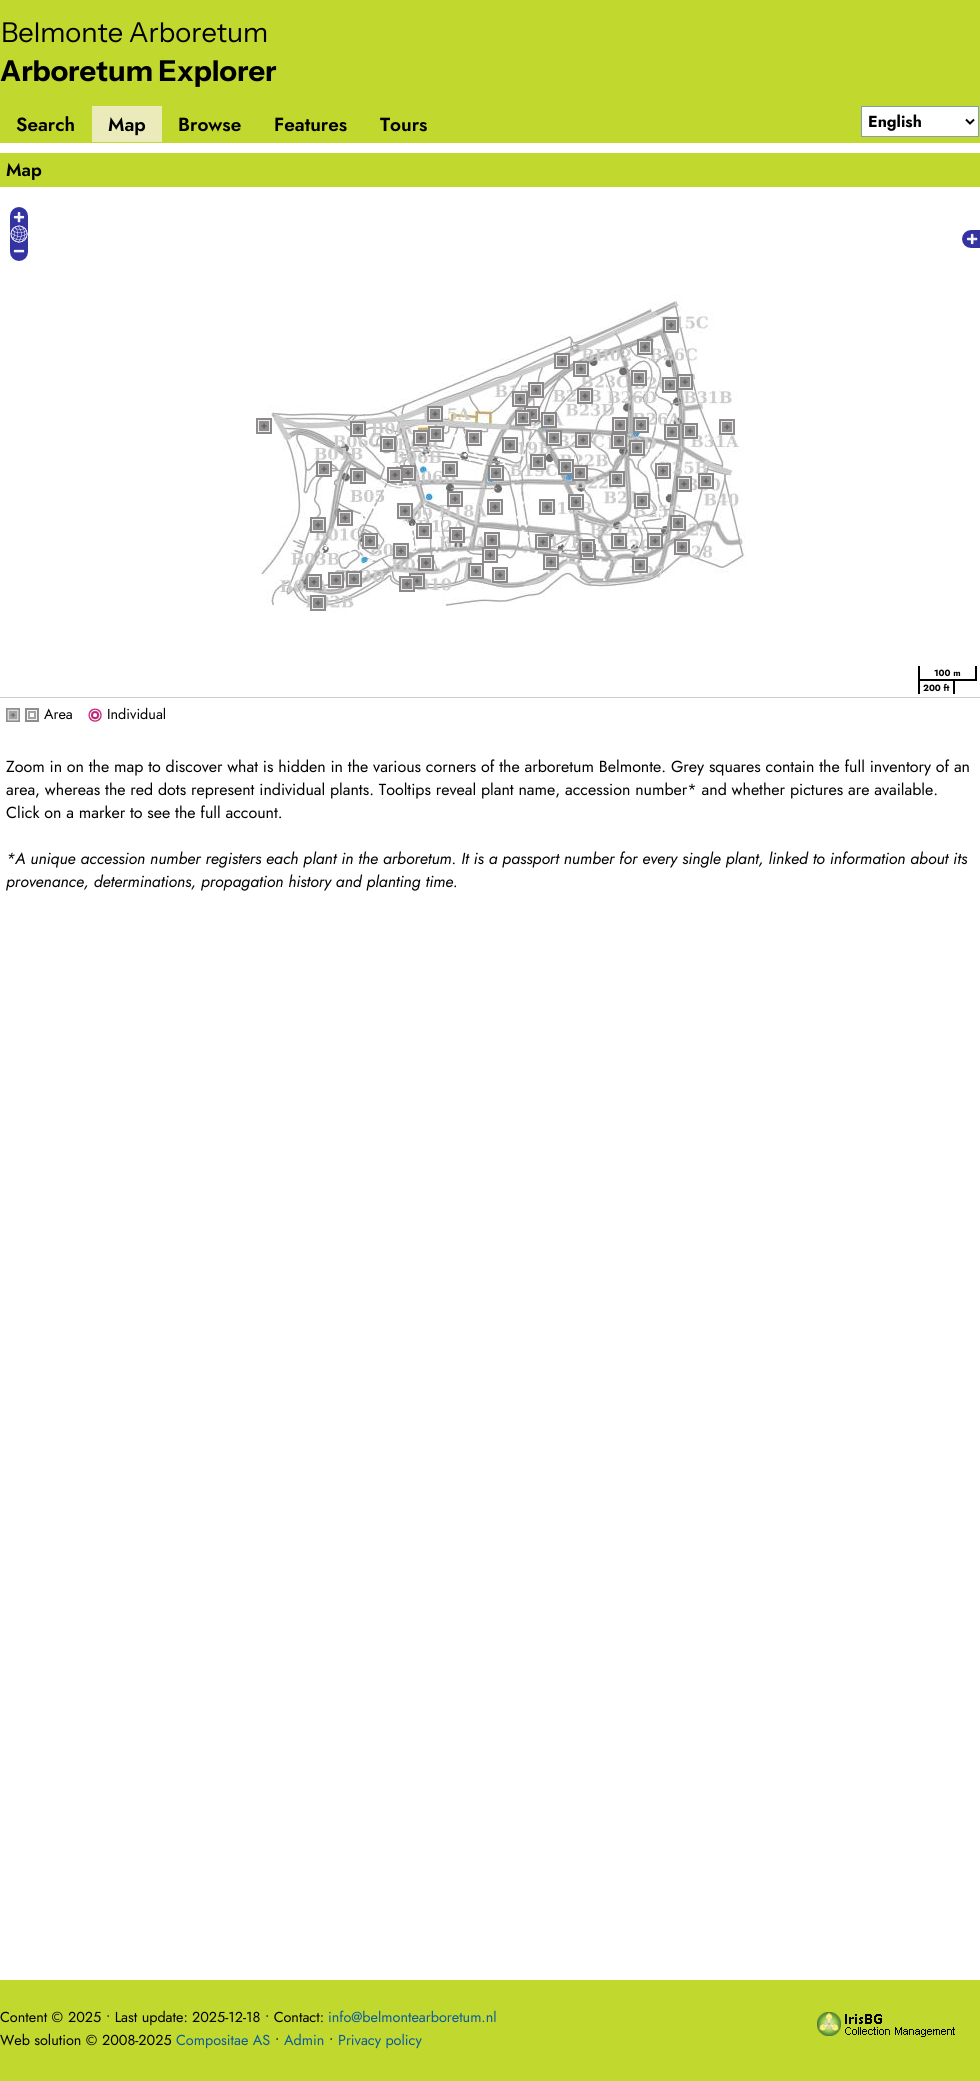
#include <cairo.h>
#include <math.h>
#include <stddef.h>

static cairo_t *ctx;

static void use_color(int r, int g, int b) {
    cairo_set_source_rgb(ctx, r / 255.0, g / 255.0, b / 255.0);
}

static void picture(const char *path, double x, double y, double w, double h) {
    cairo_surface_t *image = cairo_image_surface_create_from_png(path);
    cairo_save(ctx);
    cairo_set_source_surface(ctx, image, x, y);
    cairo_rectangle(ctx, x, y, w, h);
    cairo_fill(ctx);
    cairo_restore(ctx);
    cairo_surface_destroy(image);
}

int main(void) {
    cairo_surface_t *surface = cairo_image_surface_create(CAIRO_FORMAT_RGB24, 980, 2081);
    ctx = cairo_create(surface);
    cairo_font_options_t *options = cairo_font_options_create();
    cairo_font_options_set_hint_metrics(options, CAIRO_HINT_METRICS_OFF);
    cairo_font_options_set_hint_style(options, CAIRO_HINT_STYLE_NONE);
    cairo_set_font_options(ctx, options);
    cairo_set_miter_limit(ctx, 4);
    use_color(255, 255, 255);
    cairo_paint(ctx);
    use_color(193, 216, 46);
    cairo_rectangle(ctx, 0, 0, 980, 143);
    cairo_fill(ctx);
    cairo_select_font_face(ctx, "Instrument Sans", CAIRO_FONT_SLANT_NORMAL, CAIRO_FONT_WEIGHT_NORMAL);
    cairo_set_font_size(ctx, 27.25);
    use_color(0, 0, 0);
    cairo_move_to(ctx, 1, 42);
    cairo_show_text(ctx, "Belmonte Arboretum");
    cairo_select_font_face(ctx, "Instrument Sans", CAIRO_FONT_SLANT_NORMAL, CAIRO_FONT_WEIGHT_BOLD);
    cairo_set_font_size(ctx, 28.75);
    cairo_move_to(ctx, 0, 81);
    cairo_show_text(ctx, "Arboretum Explorer");
    cairo_select_font_face(ctx, "Jost SemiBold", CAIRO_FONT_SLANT_NORMAL, CAIRO_FONT_WEIGHT_NORMAL);
    cairo_set_font_size(ctx, 19);
    cairo_move_to(ctx, 16, 131);
    cairo_show_text(ctx, "Search");
    use_color(235, 234, 187);
    cairo_rectangle(ctx, 92, 106, 70, 36);
    cairo_fill(ctx);
    use_color(0, 0, 0);
    cairo_move_to(ctx, 108, 131);
    cairo_show_text(ctx, "Map");
    cairo_move_to(ctx, 178, 131);
    cairo_show_text(ctx, "Browse");
    cairo_move_to(ctx, 274, 131);
    cairo_show_text(ctx, "Features");
    cairo_move_to(ctx, 380, 131);
    cairo_show_text(ctx, "Tours");
    use_color(255, 255, 255);
    cairo_rectangle(ctx, 861.5, 106.5, 117, 30);
    cairo_fill_preserve(ctx);
    use_color(127, 157, 185);
    cairo_set_line_width(ctx, 1);
    cairo_stroke(ctx);
    cairo_new_path(ctx);
    cairo_move_to(ctx, 966, 119.5);
    cairo_line_to(ctx, 970, 123.5);
    cairo_line_to(ctx, 974, 119.5);
    use_color(0, 0, 0);
    cairo_set_line_width(ctx, 2);
    cairo_stroke(ctx);
    cairo_select_font_face(ctx, "Jost", CAIRO_FONT_SLANT_NORMAL, CAIRO_FONT_WEIGHT_BOLD);
    cairo_set_font_size(ctx, 16);
    cairo_move_to(ctx, 868, 127);
    cairo_show_text(ctx, "English");
    use_color(193, 216, 46);
    cairo_rectangle(ctx, 0, 153, 980, 34);
    cairo_fill(ctx);
    cairo_select_font_face(ctx, "Jost SemiBold", CAIRO_FONT_SLANT_NORMAL, CAIRO_FONT_WEIGHT_NORMAL);
    cairo_set_font_size(ctx, 18);
    use_color(0, 0, 0);
    cairo_move_to(ctx, 6, 176);
    cairo_show_text(ctx, "Map");
    picture("img1.png", 10, 207, 18, 18);
    picture("img2.png", 10, 225, 18, 18);
    picture("img3.png", 10, 243, 18, 18);
    picture("img4.png", 962, 230, 18, 18);
    picture("img5.png", 474, 366, 16, 8);
    picture("img8.png", 490, 374, 256, 229);
    picture("img7.png", 256, 374, 235, 239);
    picture("img6.png", 490, 295, 224, 80);
    picture("img9.png", 259, 319, 473, 289);
    cairo_rectangle(ctx, 975, 666, 2, 15);
    cairo_fill(ctx);
    cairo_rectangle(ctx, 918, 679, 59, 2);
    cairo_fill(ctx);
    cairo_rectangle(ctx, 918, 666, 2, 28);
    cairo_fill(ctx);
    cairo_select_font_face(ctx, "Jost", CAIRO_FONT_SLANT_NORMAL, CAIRO_FONT_WEIGHT_BOLD);
    cairo_set_font_size(ctx, 9);
    cairo_move_to(ctx, 934, 676);
    cairo_show_text(ctx, "100 m");
    cairo_rectangle(ctx, 953, 679, 2, 15);
    cairo_fill(ctx);
    cairo_move_to(ctx, 923, 691);
    cairo_show_text(ctx, "200 ft");
    use_color(204, 204, 204);
    cairo_rectangle(ctx, 0, 697, 980, 1);
    cairo_fill(ctx);
    picture("img10.png", 6, 708, 14, 14);
    picture("img11.png", 25, 708, 14, 14);
    cairo_select_font_face(ctx, "Jost", CAIRO_FONT_SLANT_NORMAL, CAIRO_FONT_WEIGHT_NORMAL);
    cairo_set_font_size(ctx, 14.4);
    use_color(0, 0, 0);
    cairo_move_to(ctx, 44, 719);
    cairo_show_text(ctx, "Area");
    picture("img12.png", 88, 708, 14, 14);
    cairo_move_to(ctx, 107, 719);
    cairo_show_text(ctx, "Individual");
    cairo_set_font_size(ctx, 16);
    cairo_move_to(ctx, 6, 772);
    cairo_show_text(ctx, "Zoom in on the map to discover what is hidden in the various corners of the arboretum Belmonte. Grey squares contain the full inventory of an");
    cairo_move_to(ctx, 6, 795);
    cairo_show_text(ctx, "area, whereas the red dots represent individual plants. Tooltips reveal plant name, accession number* and whether pictures are available.");
    cairo_move_to(ctx, 6, 818);
    cairo_show_text(ctx, "Click on a marker to see the full account.");
    cairo_select_font_face(ctx, "Jost", CAIRO_FONT_SLANT_ITALIC, CAIRO_FONT_WEIGHT_NORMAL);
    cairo_move_to(ctx, 6, 864);
    cairo_show_text(ctx, "*A unique accession number registers each plant in the arboretum. It is a passport number for every single plant, linked to information about its");
    cairo_move_to(ctx, 6, 887);
    cairo_show_text(ctx, "provenance, determinations, propagation history and planting time.");
    use_color(193, 216, 46);
    cairo_rectangle(ctx, 0, 1980, 980, 101);
    cairo_fill(ctx);
    cairo_select_font_face(ctx, "Jost", CAIRO_FONT_SLANT_NORMAL, CAIRO_FONT_WEIGHT_NORMAL);
    cairo_set_font_size(ctx, 14.4);
    use_color(0, 0, 0);
    cairo_move_to(ctx, 0, 2022);
    cairo_show_text(ctx, "Content ©");
    cairo_move_to(ctx, 68, 2022);
    cairo_show_text(ctx, "2025");
    cairo_move_to(ctx, 106, 2022);
    cairo_show_text(ctx, "• Last update: 2025-12-18");
    cairo_move_to(ctx, 265, 2022);
    cairo_show_text(ctx, "• Contact:");
    use_color(11, 90, 157);
    cairo_move_to(ctx, 328, 2022);
    cairo_show_text(ctx, "info@belmontearboretum.nl");
    use_color(0, 0, 0);
    cairo_move_to(ctx, 0, 2045);
    cairo_show_text(ctx, "Web solution ©");
    cairo_move_to(ctx, 102, 2045);
    cairo_show_text(ctx, "2008-2025");
    use_color(11, 90, 157);
    cairo_move_to(ctx, 176, 2045);
    cairo_show_text(ctx, "Compositae AS");
    use_color(0, 0, 0);
    cairo_move_to(ctx, 275, 2045);
    cairo_show_text(ctx, "•");
    use_color(11, 90, 157);
    cairo_move_to(ctx, 284, 2045);
    cairo_show_text(ctx, "Admin");
    use_color(0, 0, 0);
    cairo_move_to(ctx, 329, 2045);
    cairo_show_text(ctx, "•");
    use_color(11, 90, 157);
    cairo_move_to(ctx, 338, 2045);
    cairo_show_text(ctx, "Privacy policy");
    picture("img13.png", 817, 2012, 138, 25);
    cairo_surface_write_to_png(surface, "result.png");
    cairo_font_options_destroy(options);
    cairo_destroy(ctx);
    cairo_surface_destroy(surface);
    return 0;
}
